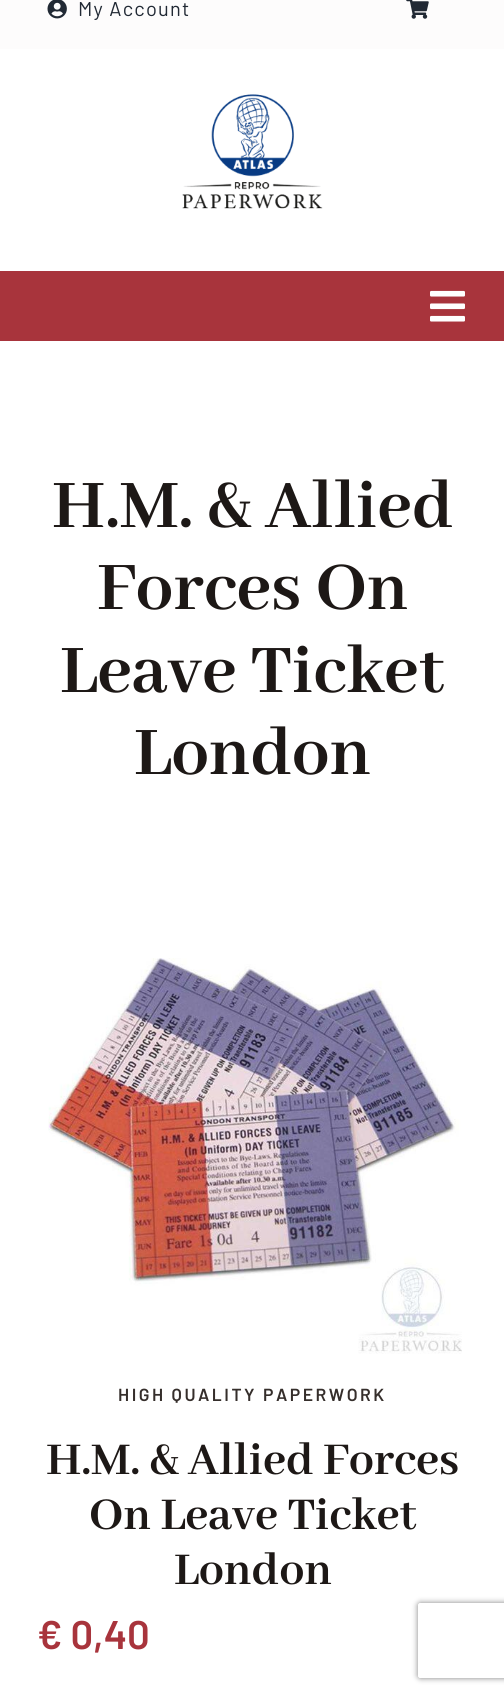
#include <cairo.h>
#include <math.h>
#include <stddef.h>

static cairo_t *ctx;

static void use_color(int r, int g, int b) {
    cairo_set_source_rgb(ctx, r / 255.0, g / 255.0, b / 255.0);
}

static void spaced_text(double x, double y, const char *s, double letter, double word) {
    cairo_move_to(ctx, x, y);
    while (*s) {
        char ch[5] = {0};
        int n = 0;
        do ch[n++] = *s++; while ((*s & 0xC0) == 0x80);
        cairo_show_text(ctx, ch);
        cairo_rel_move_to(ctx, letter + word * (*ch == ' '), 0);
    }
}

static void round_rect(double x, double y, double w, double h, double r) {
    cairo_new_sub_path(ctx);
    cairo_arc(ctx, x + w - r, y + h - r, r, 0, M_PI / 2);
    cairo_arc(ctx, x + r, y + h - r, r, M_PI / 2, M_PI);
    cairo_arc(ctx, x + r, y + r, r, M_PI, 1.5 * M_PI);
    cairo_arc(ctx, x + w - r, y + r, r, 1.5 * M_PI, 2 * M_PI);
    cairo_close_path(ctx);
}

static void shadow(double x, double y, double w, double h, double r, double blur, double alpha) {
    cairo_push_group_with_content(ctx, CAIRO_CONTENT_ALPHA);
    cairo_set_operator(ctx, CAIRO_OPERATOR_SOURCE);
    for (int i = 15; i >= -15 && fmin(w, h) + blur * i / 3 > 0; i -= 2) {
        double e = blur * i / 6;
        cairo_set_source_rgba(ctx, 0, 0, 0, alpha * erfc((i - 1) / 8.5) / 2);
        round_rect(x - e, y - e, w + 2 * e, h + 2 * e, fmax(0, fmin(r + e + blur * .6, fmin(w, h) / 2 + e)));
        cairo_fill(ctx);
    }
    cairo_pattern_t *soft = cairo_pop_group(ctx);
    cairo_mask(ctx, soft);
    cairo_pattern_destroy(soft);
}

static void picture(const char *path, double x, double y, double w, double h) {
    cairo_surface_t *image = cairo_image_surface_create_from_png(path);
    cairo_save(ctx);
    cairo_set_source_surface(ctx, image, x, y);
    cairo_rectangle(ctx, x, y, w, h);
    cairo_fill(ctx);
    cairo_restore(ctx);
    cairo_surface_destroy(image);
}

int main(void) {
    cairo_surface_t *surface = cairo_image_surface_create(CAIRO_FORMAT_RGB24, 504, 1694);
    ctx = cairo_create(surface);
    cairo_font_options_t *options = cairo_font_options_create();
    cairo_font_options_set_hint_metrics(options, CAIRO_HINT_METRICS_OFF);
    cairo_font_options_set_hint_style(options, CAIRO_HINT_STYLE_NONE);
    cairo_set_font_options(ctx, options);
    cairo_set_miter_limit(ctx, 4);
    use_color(255, 255, 255);
    cairo_paint(ctx);
    use_color(253, 252, 252);
    cairo_rectangle(ctx, 0, 0, 504, 49);
    cairo_fill(ctx);
    picture("img1.png", 47, 0, 20, 19);
    cairo_select_font_face(ctx, "Barlow", CAIRO_FONT_SLANT_NORMAL, CAIRO_FONT_WEIGHT_NORMAL);
    cairo_set_font_size(ctx, 20);
    use_color(33, 41, 52);
    spaced_text(78, 16, "My Account", 1.25, 0);
    picture("img2.png", 406, 0, 23, 19);
    picture("img3.png", 182, 94, 141, 115);
    use_color(168, 52, 60);
    cairo_rectangle(ctx, 0, 271, 504, 70);
    cairo_fill(ctx);
    picture("img4.png", 430, 290, 35, 32);
    cairo_select_font_face(ctx, "Abhaya Libre", CAIRO_FONT_SLANT_NORMAL, CAIRO_FONT_WEIGHT_BOLD);
    cairo_set_font_size(ctx, 75);
    use_color(29, 24, 22);
    cairo_move_to(ctx, 52, 527);
    cairo_show_text(ctx, "H.M. & Allied");
    cairo_move_to(ctx, 97, 609);
    cairo_show_text(ctx, "Forces On");
    cairo_move_to(ctx, 60, 692);
    cairo_show_text(ctx, "Leave Ticket");
    cairo_move_to(ctx, 134, 774);
    cairo_show_text(ctx, "London");
    picture("img5.png", 48, 958, 414, 396);
    cairo_select_font_face(ctx, "Barlow SemiBold", CAIRO_FONT_SLANT_NORMAL, CAIRO_FONT_WEIGHT_NORMAL);
    cairo_set_font_size(ctx, 17.5);
    use_color(53, 46, 43);
    spaced_text(118, 1401, "HIGH QUALITY PAPERWORK", 2.5, 0);
    cairo_select_font_face(ctx, "Abhaya Libre", CAIRO_FONT_SLANT_NORMAL, CAIRO_FONT_WEIGHT_BOLD);
    cairo_set_font_size(ctx, 50);
    use_color(29, 24, 22);
    cairo_move_to(ctx, 46, 1474);
    cairo_show_text(ctx, "H.M. & Allied Forces");
    cairo_move_to(ctx, 89, 1529);
    cairo_show_text(ctx, "On Leave Ticket");
    cairo_move_to(ctx, 174, 1584);
    cairo_show_text(ctx, "London");
    cairo_select_font_face(ctx, "Barlow SemiBold", CAIRO_FONT_SLANT_NORMAL, CAIRO_FONT_WEIGHT_NORMAL);
    cairo_set_font_size(ctx, 40);
    use_color(168, 52, 60);
    cairo_move_to(ctx, 37, 1649);
    cairo_show_text(ctx, "€ 0,40");
    cairo_save(ctx);
    cairo_set_fill_rule(ctx, CAIRO_FILL_RULE_EVEN_ODD);
    cairo_new_path(ctx);
    cairo_move_to(ctx, 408, 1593);
    cairo_line_to(ctx, 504, 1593);
    cairo_line_to(ctx, 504, 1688);
    cairo_line_to(ctx, 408, 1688);
    cairo_close_path(ctx);
    cairo_move_to(ctx, 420.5, 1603);
    cairo_line_to(ctx, 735.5, 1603);
    cairo_curve_to(ctx, 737, 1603, 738, 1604, 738, 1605.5);
    cairo_line_to(ctx, 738, 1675.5);
    cairo_curve_to(ctx, 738, 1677, 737, 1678, 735.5, 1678);
    cairo_line_to(ctx, 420.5, 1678);
    cairo_curve_to(ctx, 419, 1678, 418, 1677, 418, 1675.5);
    cairo_line_to(ctx, 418, 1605.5);
    cairo_curve_to(ctx, 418, 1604, 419, 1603, 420.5, 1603);
    cairo_close_path(ctx);
    cairo_clip(ctx);
    use_color(128, 128, 128);
    shadow(418, 1603, 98, 75, 2.5, 3, 1);
    cairo_restore(ctx);
    cairo_surface_write_to_png(surface, "result.png");
    cairo_font_options_destroy(options);
    cairo_destroy(ctx);
    cairo_surface_destroy(surface);
    return 0;
}
